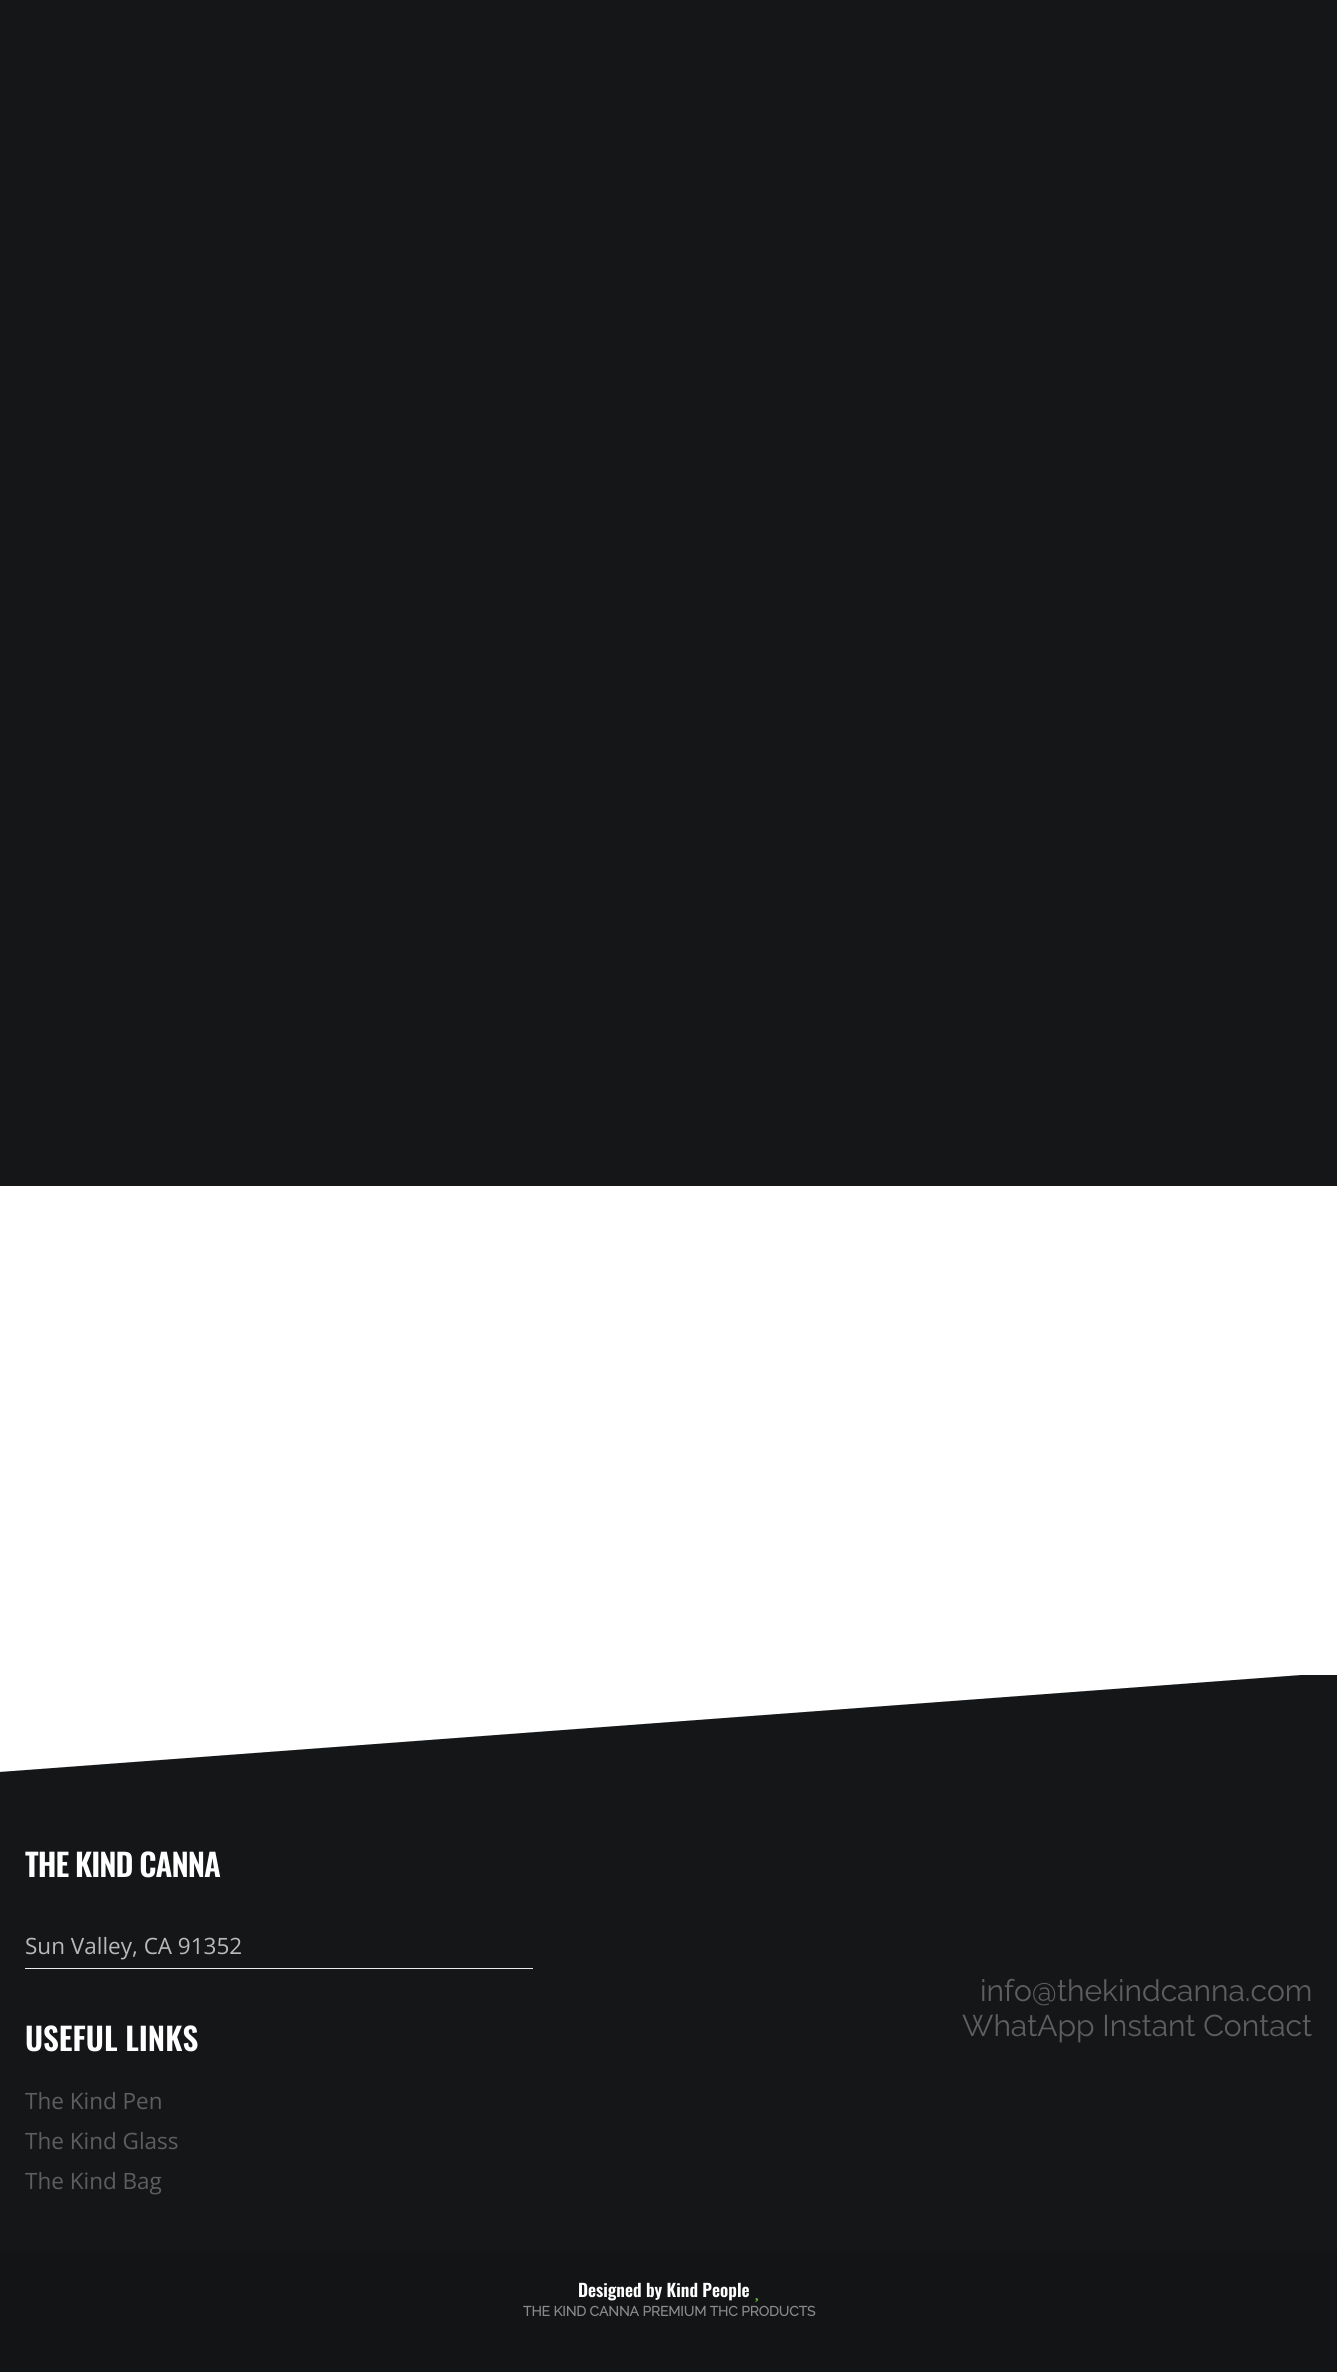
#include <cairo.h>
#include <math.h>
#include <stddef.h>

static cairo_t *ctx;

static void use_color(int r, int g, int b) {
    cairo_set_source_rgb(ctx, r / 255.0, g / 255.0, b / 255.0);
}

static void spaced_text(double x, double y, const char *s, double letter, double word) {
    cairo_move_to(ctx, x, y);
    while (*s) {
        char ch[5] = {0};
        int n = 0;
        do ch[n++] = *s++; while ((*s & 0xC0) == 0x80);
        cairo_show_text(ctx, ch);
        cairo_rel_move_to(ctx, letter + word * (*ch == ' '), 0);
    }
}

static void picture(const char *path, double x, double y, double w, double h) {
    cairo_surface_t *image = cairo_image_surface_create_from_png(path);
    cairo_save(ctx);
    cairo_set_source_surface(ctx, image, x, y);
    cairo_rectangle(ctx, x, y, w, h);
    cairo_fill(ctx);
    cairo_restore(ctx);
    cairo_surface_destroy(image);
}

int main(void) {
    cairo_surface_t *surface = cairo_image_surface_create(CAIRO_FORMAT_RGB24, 1337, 2372);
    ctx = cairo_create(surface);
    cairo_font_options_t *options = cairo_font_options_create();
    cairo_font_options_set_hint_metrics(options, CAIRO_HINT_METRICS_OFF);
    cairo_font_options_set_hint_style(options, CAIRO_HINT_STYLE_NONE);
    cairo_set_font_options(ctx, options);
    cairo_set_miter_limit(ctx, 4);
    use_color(255, 255, 255);
    cairo_paint(ctx);
    use_color(20, 22, 24);
    cairo_rectangle(ctx, 0, 0, 1337, 1186);
    cairo_fill(ctx);
    cairo_rectangle(ctx, 0, 1675, 1337, 576);
    cairo_fill(ctx);
    cairo_save(ctx);
    cairo_rectangle(ctx, 0, 1675, 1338, 99);
    cairo_clip(ctx);
    use_color(255, 255, 255);
    cairo_new_path(ctx);
    cairo_move_to(ctx, 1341, 1672);
    cairo_line_to(ctx, -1, 1672);
    cairo_line_to(ctx, -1, 1772);
    cairo_close_path(ctx);
    cairo_fill(ctx);
    cairo_restore(ctx);
    cairo_select_font_face(ctx, "Oswald SemiBold", CAIRO_FONT_SLANT_NORMAL, CAIRO_FONT_WEIGHT_NORMAL);
    cairo_set_font_size(ctx, 31.25);
    use_color(255, 255, 255);
    spaced_text(25, 1877, "THE KIND CANNA", -1, 0);
    cairo_select_font_face(ctx, "Open Sans", CAIRO_FONT_SLANT_NORMAL, CAIRO_FONT_WEIGHT_NORMAL);
    cairo_set_font_size(ctx, 22.5);
    use_color(185, 185, 186);
    cairo_move_to(ctx, 25, 1954);
    cairo_show_text(ctx, "Sun Valley, CA 91352");
    use_color(235, 235, 235);
    cairo_rectangle(ctx, 25, 1968, 508, 1);
    cairo_fill(ctx);
    cairo_select_font_face(ctx, "Oswald SemiBold", CAIRO_FONT_SLANT_NORMAL, CAIRO_FONT_WEIGHT_NORMAL);
    cairo_set_font_size(ctx, 31.25);
    use_color(255, 255, 255);
    cairo_move_to(ctx, 25, 2051);
    cairo_show_text(ctx, "USEFUL LINKS");
    cairo_select_font_face(ctx, "Open Sans", CAIRO_FONT_SLANT_NORMAL, CAIRO_FONT_WEIGHT_NORMAL);
    cairo_set_font_size(ctx, 22.5);
    use_color(94, 94, 94);
    cairo_move_to(ctx, 25, 2109);
    cairo_show_text(ctx, "The Kind Pen");
    cairo_move_to(ctx, 25, 2149);
    cairo_show_text(ctx, "The Kind Glass");
    cairo_move_to(ctx, 25, 2189);
    cairo_show_text(ctx, "The Kind Bag");
    cairo_select_font_face(ctx, "Raleway", CAIRO_FONT_SLANT_NORMAL, CAIRO_FONT_WEIGHT_NORMAL);
    cairo_set_font_size(ctx, 30);
    cairo_move_to(ctx, 980, 2001);
    cairo_show_text(ctx, "info@thekindcanna.com");
    cairo_move_to(ctx, 962, 2036);
    cairo_show_text(ctx, "WhatApp Instant Contact");
    use_color(19, 20, 22);
    cairo_rectangle(ctx, 0, 2251, 1337, 121);
    cairo_fill(ctx);
    cairo_select_font_face(ctx, "Oswald SemiBold", CAIRO_FONT_SLANT_NORMAL, CAIRO_FONT_WEIGHT_NORMAL);
    cairo_set_font_size(ctx, 17.5);
    use_color(255, 255, 255);
    cairo_move_to(ctx, 578, 2297);
    cairo_show_text(ctx, "Designed by Kind People");
    picture("img1.png", 755, 2298, 3, 4);
    cairo_select_font_face(ctx, "Raleway", CAIRO_FONT_SLANT_NORMAL, CAIRO_FONT_WEIGHT_BOLD);
    cairo_set_font_size(ctx, 13.75);
    use_color(137, 138, 139);
    cairo_move_to(ctx, 523, 2316);
    cairo_show_text(ctx, "THE KIND CANNA PREMIUM THC PRODUCTS");
    cairo_surface_write_to_png(surface, "result.png");
    cairo_font_options_destroy(options);
    cairo_destroy(ctx);
    cairo_surface_destroy(surface);
    return 0;
}
